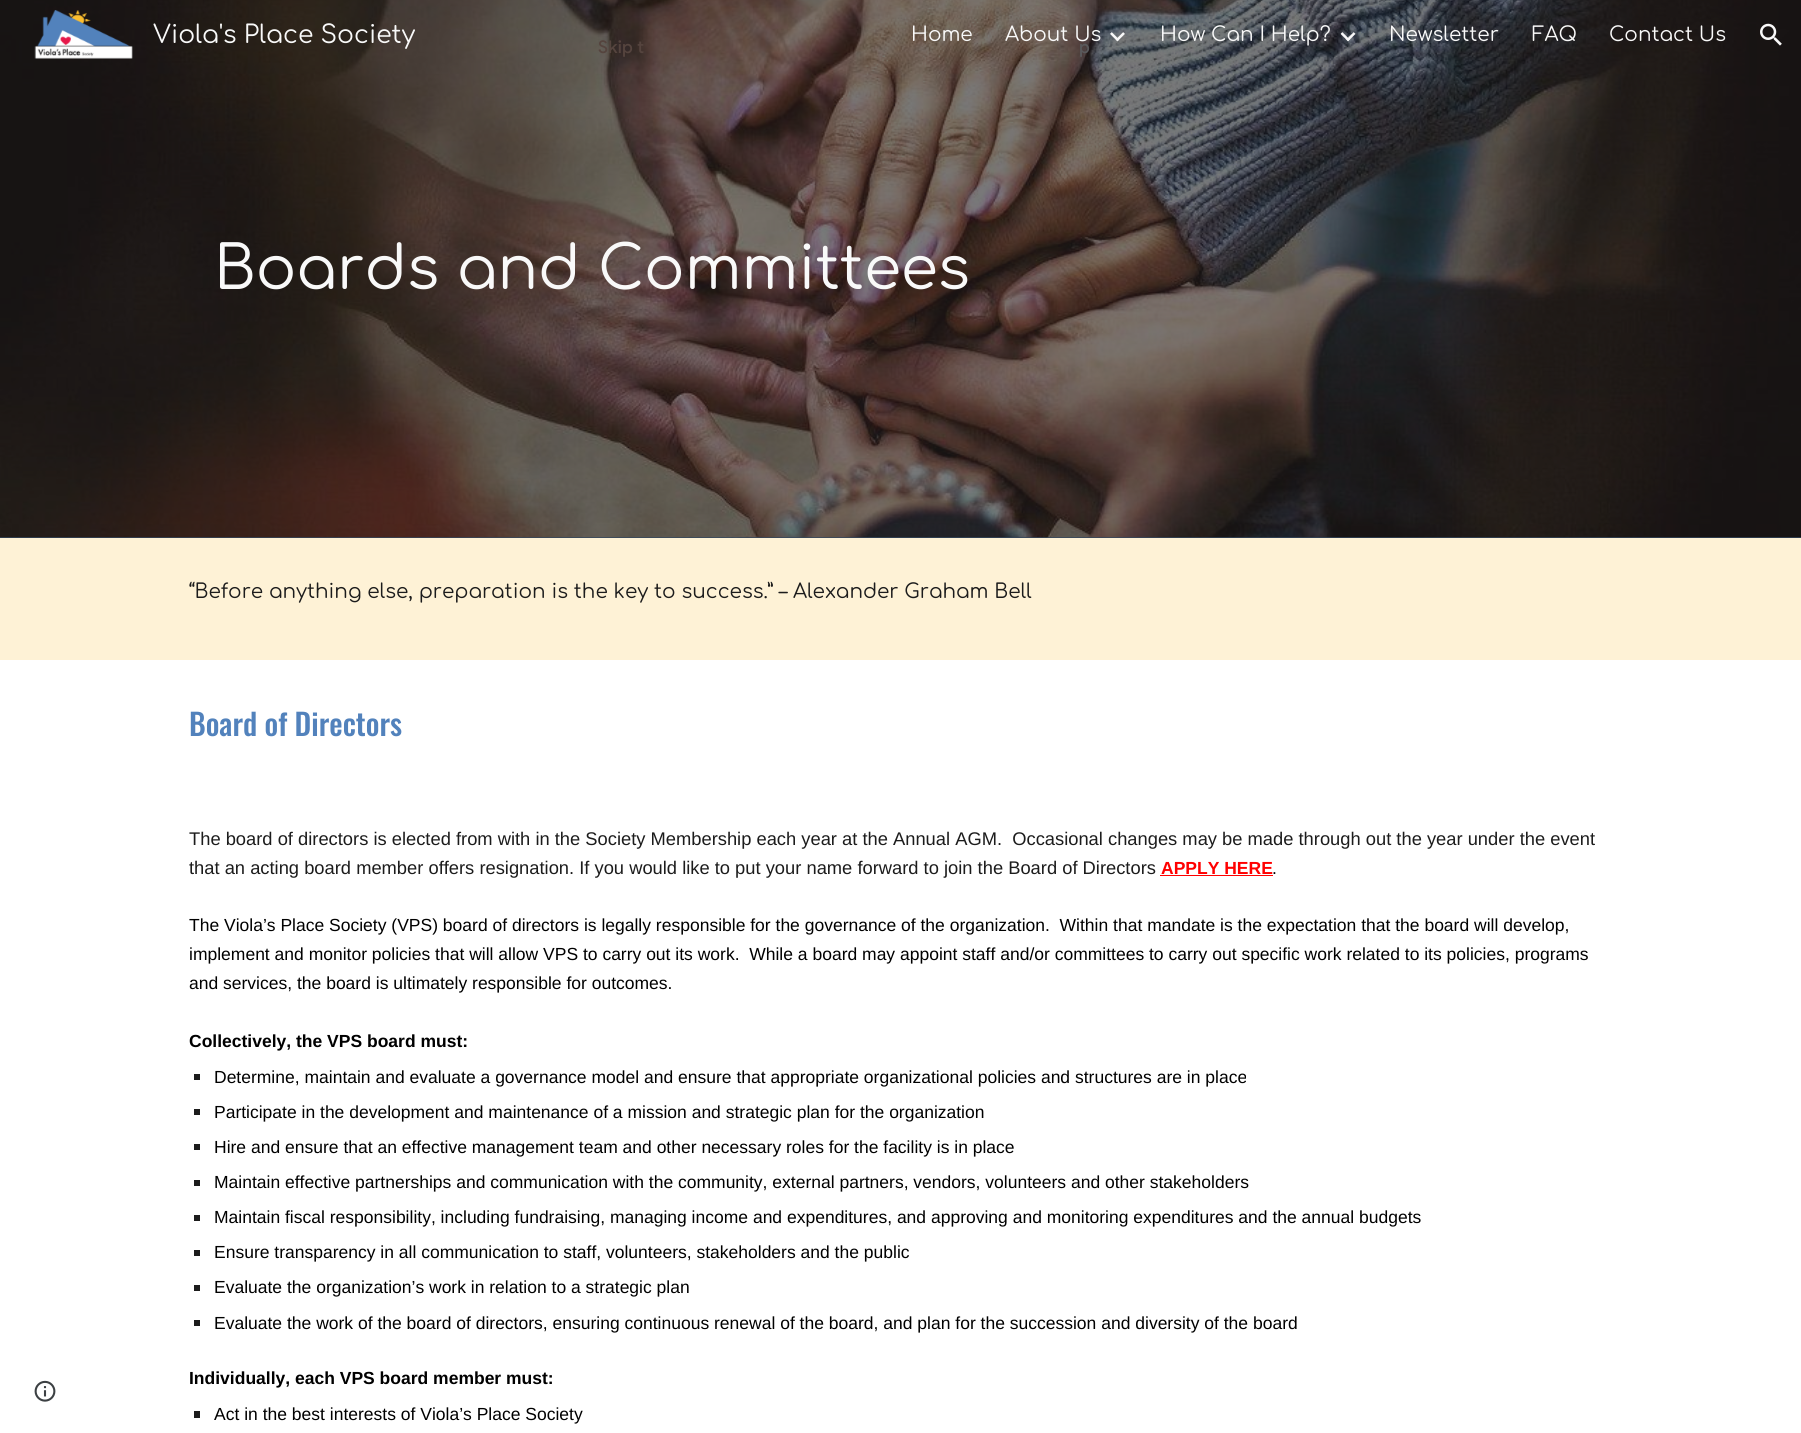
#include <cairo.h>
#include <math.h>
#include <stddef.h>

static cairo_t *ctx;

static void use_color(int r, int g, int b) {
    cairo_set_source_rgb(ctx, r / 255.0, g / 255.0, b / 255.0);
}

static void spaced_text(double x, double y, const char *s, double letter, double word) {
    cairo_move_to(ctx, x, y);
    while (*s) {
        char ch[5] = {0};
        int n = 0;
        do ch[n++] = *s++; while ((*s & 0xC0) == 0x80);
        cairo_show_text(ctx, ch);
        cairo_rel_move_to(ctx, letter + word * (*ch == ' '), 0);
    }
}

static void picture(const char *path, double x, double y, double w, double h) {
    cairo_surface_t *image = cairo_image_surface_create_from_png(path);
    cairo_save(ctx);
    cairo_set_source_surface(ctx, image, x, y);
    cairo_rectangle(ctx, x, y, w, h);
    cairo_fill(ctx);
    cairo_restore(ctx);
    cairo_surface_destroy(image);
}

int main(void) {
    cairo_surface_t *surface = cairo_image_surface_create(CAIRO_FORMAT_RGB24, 1801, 1433);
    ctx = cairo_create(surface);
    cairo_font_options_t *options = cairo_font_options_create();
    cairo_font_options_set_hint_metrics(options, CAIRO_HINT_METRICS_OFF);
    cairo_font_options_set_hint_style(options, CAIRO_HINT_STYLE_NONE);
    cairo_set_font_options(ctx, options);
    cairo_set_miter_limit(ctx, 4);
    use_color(255, 255, 255);
    cairo_paint(ctx);
    use_color(51, 71, 94);
    cairo_rectangle(ctx, 0, 537, 1801, 1);
    cairo_fill(ctx);
    picture("img6.png", 0, 0, 1801, 538);
    picture("img1.png", 34, 10, 99, 49);
    cairo_select_font_face(ctx, "Comfortaa", CAIRO_FONT_SLANT_NORMAL, CAIRO_FONT_WEIGHT_NORMAL);
    cairo_set_font_size(ctx, 25);
    use_color(249, 249, 249);
    cairo_move_to(ctx, 153, 43);
    cairo_show_text(ctx, "Viola's Place Society");
    cairo_set_font_size(ctx, 20);
    cairo_move_to(ctx, 911, 41);
    cairo_show_text(ctx, "Home");
    cairo_move_to(ctx, 1005, 41);
    cairo_show_text(ctx, "About Us");
    picture("img2.png", 1110, 32, 15, 10);
    cairo_move_to(ctx, 1160, 41);
    cairo_show_text(ctx, "How Can I Help?");
    picture("img3.png", 1340, 32, 16, 10);
    cairo_move_to(ctx, 1389, 41);
    cairo_show_text(ctx, "Newsletter");
    cairo_move_to(ctx, 1532, 41);
    cairo_show_text(ctx, "FAQ");
    cairo_move_to(ctx, 1609, 41);
    cairo_show_text(ctx, "Contact Us");
    picture("img4.png", 1760, 23, 22, 23);
    picture("img5.png", 34, 1380, 22, 22);
    cairo_set_font_size(ctx, 60);
    cairo_move_to(ctx, 214, 289);
    cairo_show_text(ctx, "Boards and Committees");
    use_color(254, 242, 214);
    cairo_rectangle(ctx, 0, 538, 1801, 122);
    cairo_fill(ctx);
    cairo_set_font_size(ctx, 20);
    use_color(28, 28, 28);
    cairo_move_to(ctx, 189, 598);
    cairo_show_text(ctx, "“Before anything else, preparation is the key to success.” – Alexander Graham Bell");
    cairo_select_font_face(ctx, "Oswald Medium", CAIRO_FONT_SLANT_NORMAL, CAIRO_FONT_WEIGHT_NORMAL);
    cairo_set_font_size(ctx, 30);
    use_color(82, 130, 188);
    cairo_move_to(ctx, 189, 736);
    cairo_show_text(ctx, "Board of Directors");
    cairo_select_font_face(ctx, "Liberation Sans", CAIRO_FONT_SLANT_NORMAL, CAIRO_FONT_WEIGHT_NORMAL);
    cairo_set_font_size(ctx, 18.33);
    use_color(28, 28, 28);
    cairo_move_to(ctx, 189, 845);
    cairo_show_text(ctx, "The board of directors is elected from with in the Society Membership each year at the Annual AGM.  Occasional changes may be made through out the year under the event");
    cairo_move_to(ctx, 189, 874);
    cairo_show_text(ctx, "that an acting board member offers resignation. If you would like to put your name forward to join the Board of Directors");
    cairo_select_font_face(ctx, "Liberation Sans", CAIRO_FONT_SLANT_NORMAL, CAIRO_FONT_WEIGHT_BOLD);
    cairo_set_font_size(ctx, 17.5);
    use_color(255, 0, 0);
    cairo_move_to(ctx, 1161, 874);
    cairo_show_text(ctx, "APPLY HERE");
    cairo_rectangle(ctx, 1160, 875, 113, 1);
    cairo_fill(ctx);
    cairo_select_font_face(ctx, "Liberation Sans", CAIRO_FONT_SLANT_NORMAL, CAIRO_FONT_WEIGHT_NORMAL);
    use_color(0, 0, 0);
    cairo_move_to(ctx, 1272, 874);
    cairo_show_text(ctx, ".");
    cairo_move_to(ctx, 189, 931);
    cairo_show_text(ctx, "The Viola’s Place Society (VPS) board of directors is legally responsible for the governance of the organization.  Within that mandate is the expectation that the board will develop,");
    cairo_move_to(ctx, 189, 960);
    cairo_show_text(ctx, "implement and monitor policies that will allow VPS to carry out its work.  While a board may appoint staff and/or committees to carry out specific work related to its policies, programs");
    cairo_move_to(ctx, 189, 989);
    cairo_show_text(ctx, "and services, the board is ultimately responsible for outcomes.");
    cairo_select_font_face(ctx, "Liberation Sans", CAIRO_FONT_SLANT_NORMAL, CAIRO_FONT_WEIGHT_BOLD);
    cairo_move_to(ctx, 189, 1047);
    cairo_show_text(ctx, "Collectively, the VPS board must:");
    use_color(28, 28, 28);
    cairo_rectangle(ctx, 194, 1074, 6, 6);
    cairo_fill(ctx);
    cairo_select_font_face(ctx, "Liberation Sans", CAIRO_FONT_SLANT_NORMAL, CAIRO_FONT_WEIGHT_NORMAL);
    use_color(0, 0, 0);
    cairo_move_to(ctx, 214, 1083);
    cairo_show_text(ctx, "Determine, maintain and evaluate a governance model and ensure that appropriate organizational policies and structures are in place");
    use_color(28, 28, 28);
    cairo_rectangle(ctx, 194, 1109, 6, 6);
    cairo_fill(ctx);
    use_color(0, 0, 0);
    cairo_move_to(ctx, 214, 1118);
    cairo_show_text(ctx, "Participate in the development and maintenance of a mission and strategic plan for the organization");
    use_color(28, 28, 28);
    cairo_rectangle(ctx, 194, 1144, 6, 6);
    cairo_fill(ctx);
    use_color(0, 0, 0);
    cairo_move_to(ctx, 214, 1153);
    cairo_show_text(ctx, "Hire and ensure that an effective management team and other necessary roles for the facility is in place");
    use_color(28, 28, 28);
    cairo_rectangle(ctx, 194, 1180, 6, 6);
    cairo_fill(ctx);
    use_color(0, 0, 0);
    cairo_move_to(ctx, 214, 1188);
    cairo_show_text(ctx, "Maintain effective partnerships and communication with the community, external partners, vendors, volunteers and other stakeholders");
    use_color(28, 28, 28);
    cairo_rectangle(ctx, 194, 1215, 6, 6);
    cairo_fill(ctx);
    use_color(0, 0, 0);
    cairo_move_to(ctx, 214, 1223);
    cairo_show_text(ctx, "Maintain fiscal responsibility, including fundraising, managing income and expenditures, and approving and monitoring expenditures and the annual budgets");
    use_color(28, 28, 28);
    cairo_rectangle(ctx, 194, 1250, 6, 6);
    cairo_fill(ctx);
    use_color(0, 0, 0);
    cairo_move_to(ctx, 214, 1258);
    cairo_show_text(ctx, "Ensure transparency in all communication to staff, volunteers, stakeholders and the public");
    use_color(28, 28, 28);
    cairo_rectangle(ctx, 194, 1285, 6, 6);
    cairo_fill(ctx);
    use_color(0, 0, 0);
    cairo_move_to(ctx, 214, 1293);
    cairo_show_text(ctx, "Evaluate the organization’s work in relation to a strategic plan");
    use_color(28, 28, 28);
    cairo_rectangle(ctx, 194, 1320, 6, 6);
    cairo_fill(ctx);
    use_color(0, 0, 0);
    cairo_move_to(ctx, 214, 1329);
    cairo_show_text(ctx, "Evaluate the work of the board of directors, ensuring continuous renewal of the board, and plan for the succession and diversity of the board");
    cairo_select_font_face(ctx, "Liberation Sans", CAIRO_FONT_SLANT_NORMAL, CAIRO_FONT_WEIGHT_BOLD);
    cairo_move_to(ctx, 189, 1384);
    cairo_show_text(ctx, "Individually, each VPS board member must:");
    use_color(28, 28, 28);
    cairo_rectangle(ctx, 194, 1411, 6, 7);
    cairo_fill(ctx);
    cairo_select_font_face(ctx, "Liberation Sans", CAIRO_FONT_SLANT_NORMAL, CAIRO_FONT_WEIGHT_NORMAL);
    use_color(0, 0, 0);
    cairo_move_to(ctx, 214, 1420);
    cairo_show_text(ctx, "Act in the best interests of Viola’s Place Society");
    cairo_select_font_face(ctx, "Google Sans Medium", CAIRO_FONT_SLANT_NORMAL, CAIRO_FONT_WEIGHT_NORMAL);
    use_color(85, 68, 62);
    spaced_text(598, 53, "Skip t", 0.25, 0);
    use_color(89, 89, 91);
    spaced_text(1079, 53, "p", 0.25, 0);
    cairo_surface_write_to_png(surface, "result.png");
    cairo_font_options_destroy(options);
    cairo_destroy(ctx);
    cairo_surface_destroy(surface);
    return 0;
}
